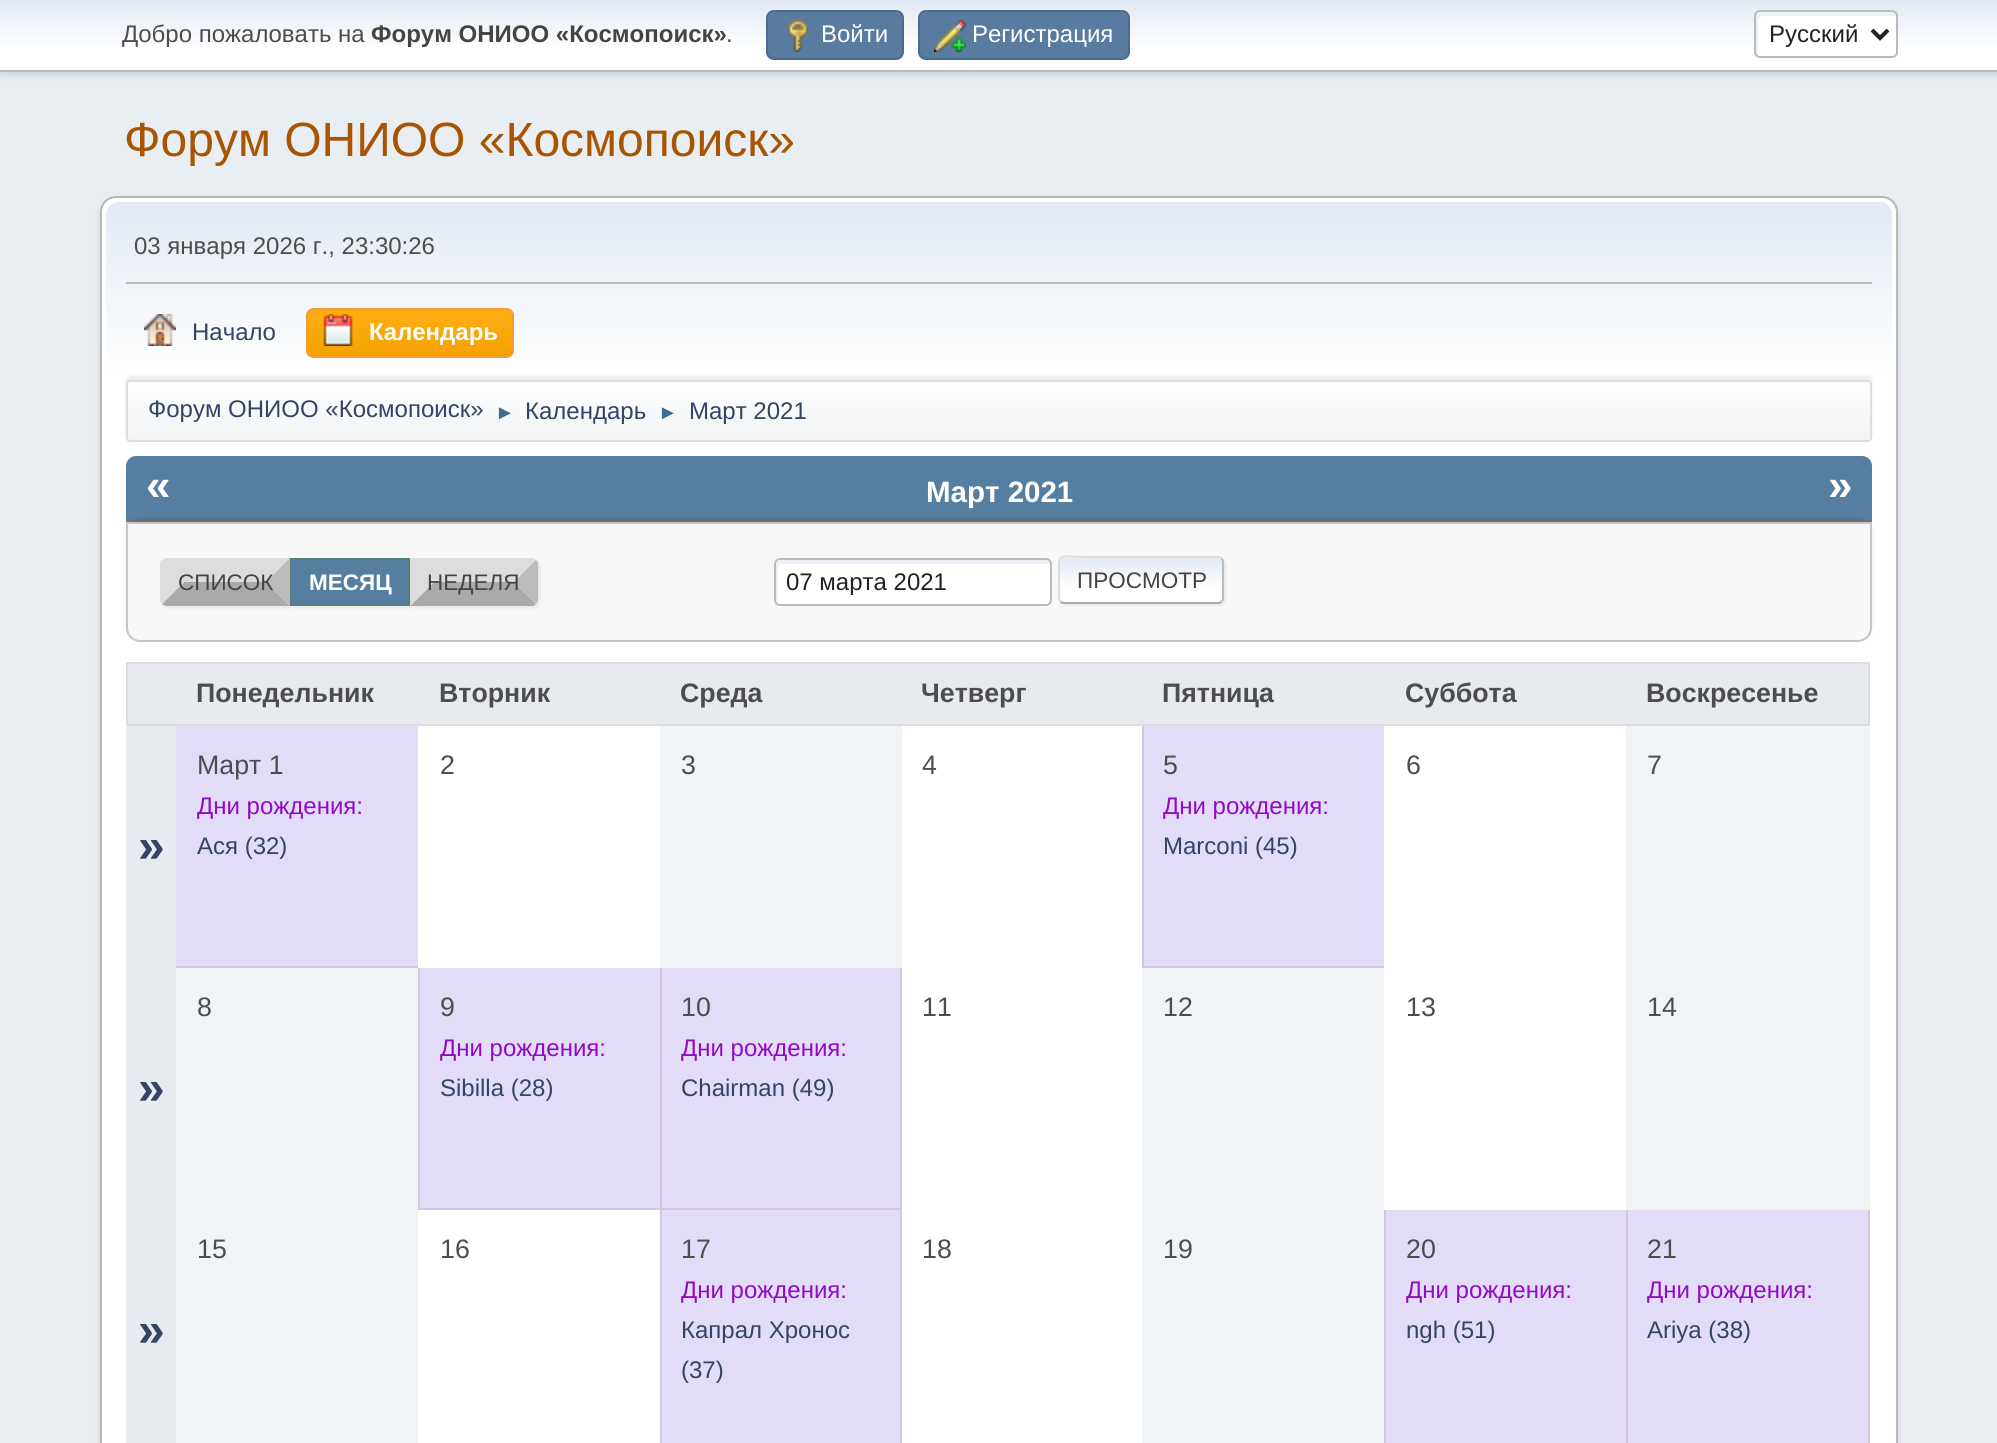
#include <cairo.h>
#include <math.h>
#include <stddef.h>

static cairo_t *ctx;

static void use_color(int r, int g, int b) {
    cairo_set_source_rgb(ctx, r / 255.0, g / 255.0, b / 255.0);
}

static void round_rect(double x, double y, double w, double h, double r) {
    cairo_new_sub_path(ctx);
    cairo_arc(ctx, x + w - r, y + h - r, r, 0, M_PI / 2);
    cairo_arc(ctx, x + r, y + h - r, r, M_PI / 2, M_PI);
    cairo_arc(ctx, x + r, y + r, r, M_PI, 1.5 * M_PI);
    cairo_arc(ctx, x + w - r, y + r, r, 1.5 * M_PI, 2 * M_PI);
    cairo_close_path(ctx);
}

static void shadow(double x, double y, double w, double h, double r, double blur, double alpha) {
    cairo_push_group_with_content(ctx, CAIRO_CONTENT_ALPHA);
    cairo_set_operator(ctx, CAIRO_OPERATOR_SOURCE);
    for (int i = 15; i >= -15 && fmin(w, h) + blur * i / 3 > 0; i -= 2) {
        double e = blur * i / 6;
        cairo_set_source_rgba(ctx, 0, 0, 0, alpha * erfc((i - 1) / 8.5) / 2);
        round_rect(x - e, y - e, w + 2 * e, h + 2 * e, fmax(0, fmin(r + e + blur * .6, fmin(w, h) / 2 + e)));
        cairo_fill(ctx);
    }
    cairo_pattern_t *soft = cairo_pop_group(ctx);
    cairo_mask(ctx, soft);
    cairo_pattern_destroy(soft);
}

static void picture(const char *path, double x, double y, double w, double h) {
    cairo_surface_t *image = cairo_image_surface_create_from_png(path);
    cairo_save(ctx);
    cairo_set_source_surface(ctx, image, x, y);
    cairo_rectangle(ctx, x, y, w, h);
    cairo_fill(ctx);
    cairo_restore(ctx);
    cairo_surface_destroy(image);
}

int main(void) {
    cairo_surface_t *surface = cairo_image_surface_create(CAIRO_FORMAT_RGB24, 1997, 1443);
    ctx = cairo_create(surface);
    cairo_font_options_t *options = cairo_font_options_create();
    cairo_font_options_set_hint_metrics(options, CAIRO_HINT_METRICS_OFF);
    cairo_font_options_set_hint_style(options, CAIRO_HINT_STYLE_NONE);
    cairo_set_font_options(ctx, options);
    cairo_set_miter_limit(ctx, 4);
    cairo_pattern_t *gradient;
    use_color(233, 238, 242);
    cairo_paint(ctx);
    use_color(0, 0, 0);
    shadow(0, 2, 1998, 72, 0, 4, 0.16);
    gradient = cairo_pattern_create_linear(999, 0, 999, 70);
    cairo_pattern_add_color_stop_rgba(gradient, 0, 0.886, 0.914, 0.953, 1);
    cairo_pattern_add_color_stop_rgba(gradient, 0.7, 1, 1, 1, 1);
    cairo_set_source(ctx, gradient);
    cairo_pattern_destroy(gradient);
    cairo_rectangle(ctx, 0, 0, 1997, 70);
    cairo_fill(ctx);
    use_color(187, 187, 187);
    cairo_rectangle(ctx, 0, 70, 1997, 2);
    cairo_fill(ctx);
    cairo_select_font_face(ctx, "Liberation Sans", CAIRO_FONT_SLANT_NORMAL, CAIRO_FONT_WEIGHT_NORMAL);
    cairo_set_font_size(ctx, 24);
    use_color(77, 77, 77);
    cairo_move_to(ctx, 122, 42);
    cairo_show_text(ctx, "Добро пожаловать на");
    cairo_select_font_face(ctx, "Liberation Sans", CAIRO_FONT_SLANT_NORMAL, CAIRO_FONT_WEIGHT_BOLD);
    use_color(68, 68, 68);
    cairo_move_to(ctx, 371, 42);
    cairo_show_text(ctx, "Форум ОНИОО «Космопоиск»");
    cairo_select_font_face(ctx, "Liberation Sans", CAIRO_FONT_SLANT_NORMAL, CAIRO_FONT_WEIGHT_NORMAL);
    use_color(77, 77, 77);
    cairo_move_to(ctx, 726, 42);
    cairo_show_text(ctx, ".");
    use_color(89, 123, 159);
    round_rect(767, 11, 136, 48, 7);
    cairo_fill_preserve(ctx);
    use_color(74, 107, 140);
    cairo_stroke(ctx);
    picture("img1.png", 787, 20, 22, 32);
    use_color(255, 255, 255);
    cairo_move_to(ctx, 821, 42);
    cairo_show_text(ctx, "Войти");
    use_color(89, 123, 159);
    round_rect(919, 11, 210, 48, 7);
    cairo_fill_preserve(ctx);
    use_color(74, 107, 140);
    cairo_stroke(ctx);
    picture("img2.png", 934, 20, 32, 32);
    use_color(255, 255, 255);
    cairo_move_to(ctx, 972, 42);
    cairo_show_text(ctx, "Регистрация");
    round_rect(1754, 10, 144, 48, 6);
    cairo_fill(ctx);
    use_color(236, 241, 248);
    cairo_new_path(ctx);
    cairo_move_to(ctx, 1762, 16);
    cairo_line_to(ctx, 1894, 16);
    cairo_line_to(ctx, 1896, 17);
    cairo_line_to(ctx, 1896, 16);
    cairo_curve_to(ctx, 1896, 14, 1894, 12, 1892, 12);
    cairo_line_to(ctx, 1760, 12);
    cairo_curve_to(ctx, 1758, 12, 1756, 14, 1756, 16);
    cairo_line_to(ctx, 1756, 52);
    cairo_curve_to(ctx, 1756, 53, 1757, 55, 1758, 55);
    cairo_line_to(ctx, 1758, 20);
    cairo_curve_to(ctx, 1758, 18, 1760, 16, 1762, 16);
    cairo_close_path(ctx);
    cairo_fill(ctx);
    round_rect(1755, 11, 142, 46, 5);
    use_color(187, 187, 187);
    cairo_stroke(ctx);
    cairo_new_path(ctx);
    cairo_move_to(ctx, 1872, 30);
    cairo_line_to(ctx, 1880, 38);
    cairo_line_to(ctx, 1888, 30);
    use_color(34, 34, 34);
    cairo_set_line_width(ctx, 4);
    cairo_stroke(ctx);
    cairo_move_to(ctx, 1769, 42);
    cairo_show_text(ctx, "Русский");
    cairo_set_font_size(ctx, 48);
    use_color(168, 84, 0);
    cairo_move_to(ctx, 124, 156);
    cairo_show_text(ctx, "Форум ОНИОО «Космопоиск»");
    use_color(0, 0, 0);
    shadow(100, 200, 1798, 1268, 16, 3, 0.14);
    use_color(255, 255, 255);
    round_rect(101, 197, 1796, 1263, 15);
    cairo_fill_preserve(ctx);
    use_color(184, 184, 184);
    cairo_set_line_width(ctx, 2);
    cairo_stroke(ctx);
    gradient = cairo_pattern_create_linear(999, 202, 999, 446);
    cairo_pattern_add_color_stop_rgba(gradient, 0, 0.886, 0.914, 0.953, 1);
    cairo_pattern_add_color_stop_rgba(gradient, 0.7, 1, 1, 1, 1);
    cairo_set_source(ctx, gradient);
    cairo_pattern_destroy(gradient);
    cairo_new_path(ctx);
    cairo_move_to(ctx, 118, 202);
    cairo_line_to(ctx, 1880, 202);
    cairo_curve_to(ctx, 1886.5, 202, 1892, 207.5, 1892, 214);
    cairo_line_to(ctx, 1892, 446);
    cairo_line_to(ctx, 106, 446);
    cairo_line_to(ctx, 106, 214);
    cairo_curve_to(ctx, 106, 207.5, 111.5, 202, 118, 202);
    cairo_close_path(ctx);
    cairo_fill(ctx);
    use_color(187, 187, 187);
    cairo_rectangle(ctx, 126, 282, 1746, 2);
    cairo_fill(ctx);
    cairo_set_font_size(ctx, 24);
    use_color(77, 77, 77);
    cairo_move_to(ctx, 134, 254);
    cairo_show_text(ctx, "03 января 2026 г., 23:30:26");
    picture("img3.png", 144, 314, 32, 32);
    use_color(51, 68, 102);
    cairo_move_to(ctx, 192, 340);
    cairo_show_text(ctx, "Начало");
    cairo_save(ctx);
    round_rect(306, 308, 208, 50, 8);
    cairo_clip(ctx);
    gradient = cairo_pattern_create_linear(410, 310, 410, 356);
    cairo_pattern_add_color_stop_rgba(gradient, 0, 1, 0.682, 0.078, 1);
    cairo_pattern_add_color_stop_rgba(gradient, 1, 0.961, 0.631, 0, 1);
    cairo_set_source(ctx, gradient);
    cairo_pattern_destroy(gradient);
    cairo_rectangle(ctx, 306, 310, 208, 46);
    cairo_fill(ctx);
    cairo_restore(ctx);
    round_rect(307, 309, 206, 48, 7);
    use_color(244, 154, 58);
    cairo_stroke(ctx);
    picture("img4.png", 323, 314, 30, 32);
    cairo_select_font_face(ctx, "Liberation Sans", CAIRO_FONT_SLANT_NORMAL, CAIRO_FONT_WEIGHT_BOLD);
    use_color(255, 255, 255);
    cairo_move_to(ctx, 369, 340);
    cairo_show_text(ctx, "Календарь");
    use_color(0, 0, 0);
    shadow(126, 376, 1746, 62, 4, 2, 0.08);
    cairo_save(ctx);
    round_rect(126, 380, 1746, 62, 4);
    cairo_clip(ctx);
    gradient = cairo_pattern_create_linear(999, 382, 999, 440);
    cairo_pattern_add_color_stop_rgba(gradient, 0, 1, 1, 1, 1);
    cairo_pattern_add_color_stop_rgba(gradient, 0.95, 0.945, 0.953, 0.961, 1);
    cairo_set_source(ctx, gradient);
    cairo_pattern_destroy(gradient);
    cairo_rectangle(ctx, 126, 382, 1746, 58);
    cairo_fill(ctx);
    cairo_restore(ctx);
    round_rect(127, 381, 1744, 60, 3);
    use_color(221, 221, 221);
    cairo_stroke(ctx);
    cairo_select_font_face(ctx, "Liberation Sans", CAIRO_FONT_SLANT_NORMAL, CAIRO_FONT_WEIGHT_NORMAL);
    use_color(51, 68, 102);
    cairo_move_to(ctx, 148, 417);
    cairo_show_text(ctx, "Форум ОНИОО «Космопоиск»");
    cairo_set_font_size(ctx, 20);
    use_color(63, 107, 140);
    cairo_move_to(ctx, 495, 419);
    cairo_show_text(ctx, "►");
    cairo_set_font_size(ctx, 24);
    use_color(51, 68, 102);
    cairo_move_to(ctx, 525, 419);
    cairo_show_text(ctx, "Календарь");
    cairo_set_font_size(ctx, 20);
    use_color(63, 107, 140);
    cairo_move_to(ctx, 658, 419);
    cairo_show_text(ctx, "►");
    cairo_set_font_size(ctx, 24);
    use_color(51, 68, 102);
    cairo_move_to(ctx, 689, 419);
    cairo_show_text(ctx, "Март 2021");
    use_color(85, 126, 160);
    cairo_new_path(ctx);
    cairo_move_to(ctx, 136, 456);
    cairo_line_to(ctx, 1862, 456);
    cairo_curve_to(ctx, 1867.5, 456, 1872, 460.5, 1872, 466);
    cairo_line_to(ctx, 1872, 522);
    cairo_line_to(ctx, 126, 522);
    cairo_line_to(ctx, 126, 466);
    cairo_curve_to(ctx, 126, 460.5, 130.5, 456, 136, 456);
    cairo_close_path(ctx);
    cairo_fill(ctx);
    use_color(119, 119, 119);
    cairo_rectangle(ctx, 126, 520, 1746, 2);
    cairo_fill(ctx);
    cairo_select_font_face(ctx, "Liberation Sans", CAIRO_FONT_SLANT_NORMAL, CAIRO_FONT_WEIGHT_BOLD);
    cairo_set_font_size(ctx, 44);
    use_color(255, 255, 255);
    cairo_move_to(ctx, 146, 500);
    cairo_show_text(ctx, "«");
    cairo_set_font_size(ctx, 29.5);
    cairo_move_to(ctx, 926, 502);
    cairo_show_text(ctx, "Март 2021");
    cairo_set_font_size(ctx, 44);
    cairo_move_to(ctx, 1828, 500);
    cairo_show_text(ctx, "»");
    use_color(0, 0, 0);
    shadow(126, 518, 1746, 120, 14, 2, 0.1);
    use_color(248, 248, 248);
    cairo_new_path(ctx);
    cairo_move_to(ctx, 127, 523);
    cairo_line_to(ctx, 1871, 523);
    cairo_line_to(ctx, 1871, 628);
    cairo_curve_to(ctx, 1871, 635, 1865, 641, 1858, 641);
    cairo_line_to(ctx, 140, 641);
    cairo_curve_to(ctx, 133, 641, 127, 635, 127, 628);
    cairo_close_path(ctx);
    cairo_fill_preserve(ctx);
    use_color(197, 197, 197);
    cairo_stroke(ctx);
    use_color(221, 221, 221);
    shadow(162, 560, 130, 48, 6, 1, 0.57);
    cairo_save(ctx);
    cairo_new_path(ctx);
    cairo_move_to(ctx, 166, 558);
    cairo_line_to(ctx, 290, 558);
    cairo_line_to(ctx, 290, 606);
    cairo_line_to(ctx, 166, 606);
    cairo_curve_to(ctx, 162.5, 606, 160, 603.5, 160, 600);
    cairo_line_to(ctx, 160, 564);
    cairo_curve_to(ctx, 160, 560.5, 162.5, 558, 166, 558);
    cairo_close_path(ctx);
    cairo_clip(ctx);
    gradient = cairo_pattern_create_linear(225, 516, 225, 560);
    cairo_pattern_add_color_stop_rgba(gradient, 0, 0.886, 0.914, 0.953, 1);
    cairo_pattern_add_color_stop_rgba(gradient, 0.7, 1, 1, 1, 1);
    cairo_set_source(ctx, gradient);
    cairo_pattern_destroy(gradient);
    cairo_rectangle(ctx, 160, 558, 130, 2);
    cairo_fill(ctx);
    gradient = cairo_pattern_create_linear(225, 560, 225, 604);
    cairo_pattern_add_color_stop_rgba(gradient, 0, 0.886, 0.914, 0.953, 1);
    cairo_pattern_add_color_stop_rgba(gradient, 0.7, 1, 1, 1, 1);
    cairo_set_source(ctx, gradient);
    cairo_pattern_destroy(gradient);
    cairo_rectangle(ctx, 160, 560, 128, 44);
    cairo_fill(ctx);
    gradient = cairo_pattern_create_linear(225, 604, 225, 648);
    cairo_pattern_add_color_stop_rgba(gradient, 0, 0.886, 0.914, 0.953, 1);
    cairo_pattern_add_color_stop_rgba(gradient, 0.7, 1, 1, 1, 1);
    cairo_set_source(ctx, gradient);
    cairo_pattern_destroy(gradient);
    cairo_rectangle(ctx, 160, 604, 130, 2);
    cairo_fill(ctx);
    cairo_restore(ctx);
    use_color(221, 221, 221);
    cairo_new_path(ctx);
    cairo_move_to(ctx, 166, 558);
    cairo_line_to(ctx, 290, 558);
    cairo_line_to(ctx, 266, 582);
    cairo_line_to(ctx, 184, 582);
    cairo_line_to(ctx, 162, 560);
    cairo_curve_to(ctx, 163, 559, 164, 558, 166, 558);
    cairo_close_path(ctx);
    cairo_fill(ctx);
    use_color(187, 187, 187);
    cairo_new_path(ctx);
    cairo_move_to(ctx, 290, 558);
    cairo_line_to(ctx, 266, 582);
    cairo_line_to(ctx, 290, 606);
    cairo_close_path(ctx);
    cairo_fill(ctx);
    use_color(170, 170, 170);
    cairo_new_path(ctx);
    cairo_move_to(ctx, 290, 606);
    cairo_line_to(ctx, 165, 606);
    cairo_line_to(ctx, 162, 604);
    cairo_line_to(ctx, 184, 582);
    cairo_line_to(ctx, 266, 582);
    cairo_close_path(ctx);
    cairo_fill(ctx);
    use_color(221, 221, 221);
    cairo_new_path(ctx);
    cairo_move_to(ctx, 162, 604);
    cairo_line_to(ctx, 184, 582);
    cairo_line_to(ctx, 162, 560);
    cairo_curve_to(ctx, 161, 561, 160, 562, 160, 564);
    cairo_line_to(ctx, 160, 600);
    cairo_curve_to(ctx, 160, 602, 161, 603, 162, 604);
    cairo_close_path(ctx);
    cairo_fill(ctx);
    cairo_select_font_face(ctx, "Liberation Sans", CAIRO_FONT_SLANT_NORMAL, CAIRO_FONT_WEIGHT_NORMAL);
    cairo_set_font_size(ctx, 22.5);
    use_color(68, 68, 68);
    cairo_move_to(ctx, 178, 590);
    cairo_show_text(ctx, "СПИСОК");
    use_color(221, 221, 221);
    shadow(292, 560, 120, 48, 0, 1, 0.57);
    use_color(85, 126, 160);
    cairo_rectangle(ctx, 291, 559, 118, 46);
    cairo_fill_preserve(ctx);
    use_color(85, 128, 128);
    cairo_stroke(ctx);
    cairo_select_font_face(ctx, "Liberation Sans", CAIRO_FONT_SLANT_NORMAL, CAIRO_FONT_WEIGHT_BOLD);
    use_color(255, 255, 255);
    cairo_move_to(ctx, 309, 590);
    cairo_show_text(ctx, "МЕСЯЦ");
    use_color(221, 221, 221);
    shadow(412, 560, 128, 48, 6, 1, 0.57);
    cairo_save(ctx);
    cairo_new_path(ctx);
    cairo_move_to(ctx, 410, 558);
    cairo_line_to(ctx, 532, 558);
    cairo_curve_to(ctx, 535.5, 558, 538, 560.5, 538, 564);
    cairo_line_to(ctx, 538, 600);
    cairo_curve_to(ctx, 538, 603.5, 535.5, 606, 532, 606);
    cairo_line_to(ctx, 410, 606);
    cairo_close_path(ctx);
    cairo_clip(ctx);
    gradient = cairo_pattern_create_linear(474, 516, 474, 560);
    cairo_pattern_add_color_stop_rgba(gradient, 0, 0.886, 0.914, 0.953, 1);
    cairo_pattern_add_color_stop_rgba(gradient, 0.7, 1, 1, 1, 1);
    cairo_set_source(ctx, gradient);
    cairo_pattern_destroy(gradient);
    cairo_rectangle(ctx, 410, 558, 128, 2);
    cairo_fill(ctx);
    gradient = cairo_pattern_create_linear(474, 560, 474, 604);
    cairo_pattern_add_color_stop_rgba(gradient, 0, 0.886, 0.914, 0.953, 1);
    cairo_pattern_add_color_stop_rgba(gradient, 0.7, 1, 1, 1, 1);
    cairo_set_source(ctx, gradient);
    cairo_pattern_destroy(gradient);
    cairo_rectangle(ctx, 412, 560, 126, 44);
    cairo_fill(ctx);
    gradient = cairo_pattern_create_linear(474, 604, 474, 648);
    cairo_pattern_add_color_stop_rgba(gradient, 0, 0.886, 0.914, 0.953, 1);
    cairo_pattern_add_color_stop_rgba(gradient, 0.7, 1, 1, 1, 1);
    cairo_set_source(ctx, gradient);
    cairo_pattern_destroy(gradient);
    cairo_rectangle(ctx, 410, 604, 128, 2);
    cairo_fill(ctx);
    cairo_restore(ctx);
    use_color(221, 221, 221);
    cairo_new_path(ctx);
    cairo_move_to(ctx, 410, 558);
    cairo_line_to(ctx, 533, 558);
    cairo_line_to(ctx, 536, 560);
    cairo_line_to(ctx, 514, 582);
    cairo_line_to(ctx, 434, 582);
    cairo_close_path(ctx);
    cairo_fill(ctx);
    use_color(187, 187, 187);
    cairo_new_path(ctx);
    cairo_move_to(ctx, 536, 560);
    cairo_line_to(ctx, 514, 582);
    cairo_line_to(ctx, 536, 604);
    cairo_curve_to(ctx, 537, 603, 538, 602, 538, 600);
    cairo_line_to(ctx, 538, 564);
    cairo_curve_to(ctx, 538, 562, 537, 561, 536, 560);
    cairo_close_path(ctx);
    cairo_fill(ctx);
    use_color(170, 170, 170);
    cairo_new_path(ctx);
    cairo_move_to(ctx, 532, 606);
    cairo_line_to(ctx, 410, 606);
    cairo_line_to(ctx, 434, 582);
    cairo_line_to(ctx, 514, 582);
    cairo_line_to(ctx, 536, 604);
    cairo_curve_to(ctx, 535, 605, 534, 606, 532, 606);
    cairo_close_path(ctx);
    cairo_fill(ctx);
    use_color(221, 221, 221);
    cairo_new_path(ctx);
    cairo_move_to(ctx, 410, 558);
    cairo_line_to(ctx, 434, 582);
    cairo_line_to(ctx, 410, 606);
    cairo_close_path(ctx);
    cairo_fill(ctx);
    cairo_select_font_face(ctx, "Liberation Sans", CAIRO_FONT_SLANT_NORMAL, CAIRO_FONT_WEIGHT_NORMAL);
    use_color(68, 68, 68);
    cairo_move_to(ctx, 427, 590);
    cairo_show_text(ctx, "НЕДЕЛЯ");
    use_color(255, 255, 255);
    round_rect(774, 558, 278, 48, 6);
    cairo_fill(ctx);
    use_color(236, 241, 248);
    cairo_new_path(ctx);
    cairo_move_to(ctx, 782, 564);
    cairo_line_to(ctx, 1048, 564);
    cairo_line_to(ctx, 1050, 565);
    cairo_line_to(ctx, 1050, 564);
    cairo_curve_to(ctx, 1050, 562, 1048, 560, 1046, 560);
    cairo_line_to(ctx, 780, 560);
    cairo_curve_to(ctx, 778, 560, 776, 562, 776, 564);
    cairo_line_to(ctx, 776, 600);
    cairo_curve_to(ctx, 776, 601, 777, 603, 778, 603);
    cairo_line_to(ctx, 778, 568);
    cairo_curve_to(ctx, 778, 566, 780, 564, 782, 564);
    cairo_close_path(ctx);
    cairo_fill(ctx);
    round_rect(775, 559, 276, 46, 5);
    use_color(187, 187, 187);
    cairo_stroke(ctx);
    cairo_set_font_size(ctx, 24);
    use_color(34, 34, 34);
    cairo_move_to(ctx, 786, 590);
    cairo_show_text(ctx, "07 марта 2021");
    use_color(221, 221, 221);
    shadow(1060, 558, 166, 48, 6, 1, 0.57);
    cairo_save(ctx);
    round_rect(1058, 556, 166, 48, 6);
    cairo_clip(ctx);
    gradient = cairo_pattern_create_linear(1141, 514, 1141, 558);
    cairo_pattern_add_color_stop_rgba(gradient, 0, 0.886, 0.914, 0.953, 1);
    cairo_pattern_add_color_stop_rgba(gradient, 0.7, 1, 1, 1, 1);
    cairo_set_source(ctx, gradient);
    cairo_pattern_destroy(gradient);
    cairo_rectangle(ctx, 1058, 556, 166, 2);
    cairo_fill(ctx);
    gradient = cairo_pattern_create_linear(1141, 558, 1141, 602);
    cairo_pattern_add_color_stop_rgba(gradient, 0, 0.886, 0.914, 0.953, 1);
    cairo_pattern_add_color_stop_rgba(gradient, 0.7, 1, 1, 1, 1);
    cairo_set_source(ctx, gradient);
    cairo_pattern_destroy(gradient);
    cairo_rectangle(ctx, 1058, 558, 166, 44);
    cairo_fill(ctx);
    cairo_restore(ctx);
    cairo_new_path(ctx);
    cairo_move_to(ctx, 1221.5, 558.5);
    cairo_curve_to(ctx, 1222.5, 559.5, 1223, 560.5, 1223, 562);
    cairo_line_to(ctx, 1223, 598);
    cairo_curve_to(ctx, 1223, 599.5, 1222.5, 600.5, 1221.5, 601.5);
    use_color(187, 187, 187);
    cairo_stroke(ctx);
    cairo_new_path(ctx);
    cairo_move_to(ctx, 1221.5, 601.5);
    cairo_curve_to(ctx, 1220.5, 602.5, 1219.5, 603, 1218, 603);
    cairo_line_to(ctx, 1064, 603);
    cairo_curve_to(ctx, 1062.5, 603, 1061.5, 602.5, 1060.5, 601.5);
    use_color(170, 170, 170);
    cairo_stroke(ctx);
    cairo_new_path(ctx);
    cairo_move_to(ctx, 1060.5, 601.5);
    cairo_curve_to(ctx, 1058, 599, 1059, 594.5, 1059, 592);
    cairo_line_to(ctx, 1059, 580);
    cairo_curve_to(ctx, 1059, 550.5, 1055.5, 557, 1089.5, 557);
    cairo_line_to(ctx, 1218, 557);
    cairo_curve_to(ctx, 1219.5, 557, 1220.5, 557.5, 1221.5, 558.5);
    use_color(221, 221, 221);
    cairo_stroke(ctx);
    cairo_set_font_size(ctx, 22.5);
    use_color(68, 68, 68);
    cairo_move_to(ctx, 1077, 588);
    cairo_show_text(ctx, "ПРОСМОТР");
    use_color(240, 244, 247);
    cairo_rectangle(ctx, 176, 968, 242, 475);
    cairo_fill(ctx);
    use_color(226, 220, 248);
    cairo_rectangle(ctx, 1628, 1210, 240, 233);
    cairo_fill(ctx);
    cairo_rectangle(ctx, 1386, 1210, 240, 233);
    cairo_fill(ctx);
    cairo_rectangle(ctx, 662, 1210, 238, 233);
    cairo_fill(ctx);
    cairo_rectangle(ctx, 662, 968, 238, 240);
    cairo_fill(ctx);
    cairo_rectangle(ctx, 420, 968, 240, 240);
    cairo_fill(ctx);
    cairo_rectangle(ctx, 1144, 726, 240, 240);
    cairo_fill(ctx);
    cairo_rectangle(ctx, 176, 726, 242, 240);
    cairo_fill(ctx);
    use_color(221, 221, 221);
    cairo_rectangle(ctx, 126, 662, 1744, 2);
    cairo_fill(ctx);
    cairo_rectangle(ctx, 1868, 662, 2, 62);
    cairo_fill(ctx);
    use_color(209, 199, 224);
    cairo_rectangle(ctx, 1868, 1210, 2, 233);
    cairo_fill(ctx);
    use_color(221, 221, 221);
    cairo_rectangle(ctx, 126, 662, 2, 62);
    cairo_fill(ctx);
    use_color(231, 234, 239);
    cairo_rectangle(ctx, 128, 664, 1740, 60);
    cairo_fill(ctx);
    cairo_select_font_face(ctx, "Liberation Sans", CAIRO_FONT_SLANT_NORMAL, CAIRO_FONT_WEIGHT_BOLD);
    cairo_set_font_size(ctx, 26.75);
    use_color(77, 77, 77);
    cairo_move_to(ctx, 196, 702);
    cairo_show_text(ctx, "Понедельник");
    cairo_move_to(ctx, 439, 702);
    cairo_show_text(ctx, "Вторник");
    cairo_move_to(ctx, 680, 702);
    cairo_show_text(ctx, "Среда");
    cairo_move_to(ctx, 921, 702);
    cairo_show_text(ctx, "Четверг");
    cairo_move_to(ctx, 1162, 702);
    cairo_show_text(ctx, "Пятница");
    cairo_move_to(ctx, 1405, 702);
    cairo_show_text(ctx, "Суббота");
    cairo_move_to(ctx, 1646, 702);
    cairo_show_text(ctx, "Воскресенье");
    cairo_select_font_face(ctx, "Liberation Sans", CAIRO_FONT_SLANT_NORMAL, CAIRO_FONT_WEIGHT_NORMAL);
    cairo_move_to(ctx, 197, 774);
    cairo_show_text(ctx, "Март 1");
    cairo_set_font_size(ctx, 24);
    use_color(146, 10, 196);
    cairo_move_to(ctx, 197, 814);
    cairo_show_text(ctx, "Дни рождения:");
    use_color(51, 68, 102);
    cairo_move_to(ctx, 197, 854);
    cairo_show_text(ctx, "Ася (32)");
    cairo_set_font_size(ctx, 26.75);
    use_color(77, 77, 77);
    cairo_move_to(ctx, 440, 774);
    cairo_show_text(ctx, "2");
    use_color(240, 244, 247);
    cairo_rectangle(ctx, 660, 726, 242, 242);
    cairo_fill(ctx);
    use_color(77, 77, 77);
    cairo_move_to(ctx, 681, 774);
    cairo_show_text(ctx, "3");
    cairo_move_to(ctx, 922, 774);
    cairo_show_text(ctx, "4");
    use_color(209, 199, 224);
    cairo_rectangle(ctx, 1142, 966, 242, 2);
    cairo_fill(ctx);
    cairo_rectangle(ctx, 1142, 726, 2, 242);
    cairo_fill(ctx);
    use_color(77, 77, 77);
    cairo_move_to(ctx, 1163, 774);
    cairo_show_text(ctx, "5");
    cairo_set_font_size(ctx, 24);
    use_color(146, 10, 196);
    cairo_move_to(ctx, 1163, 814);
    cairo_show_text(ctx, "Дни рождения:");
    use_color(51, 68, 102);
    cairo_move_to(ctx, 1163, 854);
    cairo_show_text(ctx, "Marconi (45)");
    cairo_set_font_size(ctx, 26.75);
    use_color(77, 77, 77);
    cairo_move_to(ctx, 1406, 774);
    cairo_show_text(ctx, "6");
    use_color(221, 221, 221);
    cairo_rectangle(ctx, 126, 724, 1744, 2);
    cairo_fill(ctx);
    use_color(240, 244, 247);
    cairo_rectangle(ctx, 1626, 726, 244, 484);
    cairo_fill(ctx);
    use_color(77, 77, 77);
    cairo_move_to(ctx, 1647, 774);
    cairo_show_text(ctx, "7");
    use_color(231, 234, 239);
    cairo_rectangle(ctx, 126, 726, 50, 717);
    cairo_fill(ctx);
    cairo_select_font_face(ctx, "Liberation Sans", CAIRO_FONT_SLANT_NORMAL, CAIRO_FONT_WEIGHT_BOLD);
    cairo_set_font_size(ctx, 48);
    use_color(51, 68, 102);
    cairo_move_to(ctx, 138, 862);
    cairo_show_text(ctx, "»");
    use_color(209, 199, 224);
    cairo_rectangle(ctx, 176, 966, 242, 2);
    cairo_fill(ctx);
    cairo_select_font_face(ctx, "Liberation Sans", CAIRO_FONT_SLANT_NORMAL, CAIRO_FONT_WEIGHT_NORMAL);
    cairo_set_font_size(ctx, 26.75);
    use_color(77, 77, 77);
    cairo_move_to(ctx, 197, 1016);
    cairo_show_text(ctx, "8");
    use_color(209, 199, 224);
    cairo_rectangle(ctx, 418, 1208, 484, 2);
    cairo_fill(ctx);
    cairo_rectangle(ctx, 418, 968, 2, 242);
    cairo_fill(ctx);
    use_color(77, 77, 77);
    cairo_move_to(ctx, 440, 1016);
    cairo_show_text(ctx, "9");
    cairo_set_font_size(ctx, 24);
    use_color(146, 10, 196);
    cairo_move_to(ctx, 440, 1056);
    cairo_show_text(ctx, "Дни рождения:");
    use_color(51, 68, 102);
    cairo_move_to(ctx, 440, 1096);
    cairo_show_text(ctx, "Sibilla (28)");
    cairo_set_font_size(ctx, 26.75);
    use_color(77, 77, 77);
    cairo_move_to(ctx, 681, 1016);
    cairo_show_text(ctx, "10");
    cairo_set_font_size(ctx, 24);
    use_color(146, 10, 196);
    cairo_move_to(ctx, 681, 1056);
    cairo_show_text(ctx, "Дни рождения:");
    use_color(51, 68, 102);
    cairo_move_to(ctx, 681, 1096);
    cairo_show_text(ctx, "Chairman (49)");
    use_color(209, 199, 224);
    cairo_rectangle(ctx, 900, 968, 2, 242);
    cairo_fill(ctx);
    cairo_set_font_size(ctx, 26.75);
    use_color(77, 77, 77);
    cairo_move_to(ctx, 922, 1016);
    cairo_show_text(ctx, "11");
    use_color(240, 244, 247);
    cairo_rectangle(ctx, 1142, 968, 242, 475);
    cairo_fill(ctx);
    use_color(77, 77, 77);
    cairo_move_to(ctx, 1163, 1016);
    cairo_show_text(ctx, "12");
    cairo_move_to(ctx, 1406, 1016);
    cairo_show_text(ctx, "13");
    cairo_move_to(ctx, 1647, 1016);
    cairo_show_text(ctx, "14");
    cairo_select_font_face(ctx, "Liberation Sans", CAIRO_FONT_SLANT_NORMAL, CAIRO_FONT_WEIGHT_BOLD);
    cairo_set_font_size(ctx, 48);
    use_color(51, 68, 102);
    cairo_move_to(ctx, 138, 1104);
    cairo_show_text(ctx, "»");
    cairo_move_to(ctx, 138, 1346);
    cairo_show_text(ctx, "»");
    cairo_select_font_face(ctx, "Liberation Sans", CAIRO_FONT_SLANT_NORMAL, CAIRO_FONT_WEIGHT_NORMAL);
    cairo_set_font_size(ctx, 26.75);
    use_color(77, 77, 77);
    cairo_move_to(ctx, 197, 1258);
    cairo_show_text(ctx, "15");
    cairo_move_to(ctx, 440, 1258);
    cairo_show_text(ctx, "16");
    use_color(209, 199, 224);
    cairo_rectangle(ctx, 660, 968, 2, 475);
    cairo_fill(ctx);
    use_color(77, 77, 77);
    cairo_move_to(ctx, 681, 1258);
    cairo_show_text(ctx, "17");
    cairo_set_font_size(ctx, 24);
    use_color(146, 10, 196);
    cairo_move_to(ctx, 681, 1298);
    cairo_show_text(ctx, "Дни рождения:");
    use_color(51, 68, 102);
    cairo_move_to(ctx, 681, 1338);
    cairo_show_text(ctx, "Капрал Хронос");
    cairo_move_to(ctx, 681, 1378);
    cairo_show_text(ctx, "(37)");
    use_color(209, 199, 224);
    cairo_rectangle(ctx, 900, 1210, 2, 233);
    cairo_fill(ctx);
    cairo_set_font_size(ctx, 26.75);
    use_color(77, 77, 77);
    cairo_move_to(ctx, 922, 1258);
    cairo_show_text(ctx, "18");
    cairo_move_to(ctx, 1163, 1258);
    cairo_show_text(ctx, "19");
    use_color(209, 199, 224);
    cairo_rectangle(ctx, 1384, 1210, 2, 233);
    cairo_fill(ctx);
    use_color(77, 77, 77);
    cairo_move_to(ctx, 1406, 1258);
    cairo_show_text(ctx, "20");
    cairo_set_font_size(ctx, 24);
    use_color(146, 10, 196);
    cairo_move_to(ctx, 1406, 1298);
    cairo_show_text(ctx, "Дни рождения:");
    use_color(51, 68, 102);
    cairo_move_to(ctx, 1406, 1338);
    cairo_show_text(ctx, "ngh (51)");
    use_color(209, 199, 224);
    cairo_rectangle(ctx, 1626, 1210, 2, 233);
    cairo_fill(ctx);
    cairo_set_font_size(ctx, 26.75);
    use_color(77, 77, 77);
    cairo_move_to(ctx, 1647, 1258);
    cairo_show_text(ctx, "21");
    cairo_set_font_size(ctx, 24);
    use_color(146, 10, 196);
    cairo_move_to(ctx, 1647, 1298);
    cairo_show_text(ctx, "Дни рождения:");
    use_color(51, 68, 102);
    cairo_move_to(ctx, 1647, 1338);
    cairo_show_text(ctx, "Ariya (38)");
    cairo_surface_write_to_png(surface, "result.png");
    cairo_font_options_destroy(options);
    cairo_destroy(ctx);
    cairo_surface_destroy(surface);
    return 0;
}
